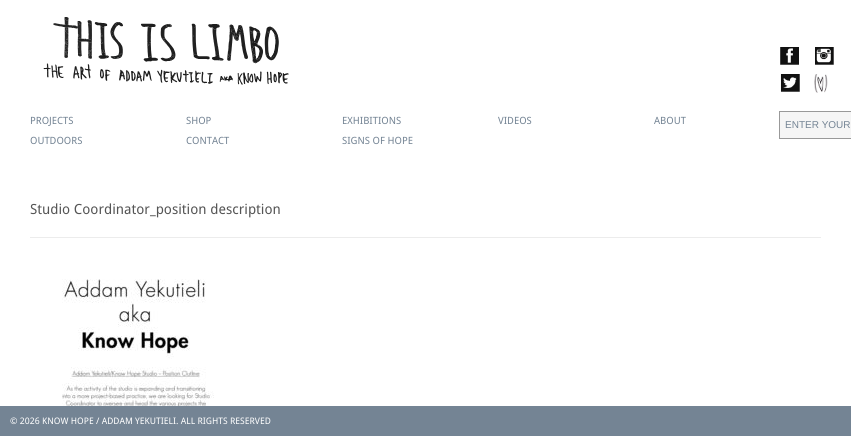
#include <cairo.h>
#include <math.h>
#include <stddef.h>

static cairo_t *ctx;

static void use_color(int r, int g, int b) {
    cairo_set_source_rgb(ctx, r / 255.0, g / 255.0, b / 255.0);
}

static void picture(const char *path, double x, double y, double w, double h) {
    cairo_surface_t *image = cairo_image_surface_create_from_png(path);
    cairo_save(ctx);
    cairo_set_source_surface(ctx, image, x, y);
    cairo_rectangle(ctx, x, y, w, h);
    cairo_fill(ctx);
    cairo_restore(ctx);
    cairo_surface_destroy(image);
}

int main(void) {
    cairo_surface_t *surface = cairo_image_surface_create(CAIRO_FORMAT_RGB24, 851, 436);
    ctx = cairo_create(surface);
    cairo_font_options_t *options = cairo_font_options_create();
    cairo_font_options_set_hint_metrics(options, CAIRO_HINT_METRICS_OFF);
    cairo_font_options_set_hint_style(options, CAIRO_HINT_STYLE_NONE);
    cairo_set_font_options(ctx, options);
    cairo_set_miter_limit(ctx, 4);
    use_color(255, 255, 255);
    cairo_paint(ctx);
    picture("img1.png", 43, 17, 246, 68);
    picture("img2.png", 780, 47, 19, 18);
    picture("img3.png", 815, 47, 19, 18);
    picture("img4.png", 780, 74, 20, 18);
    picture("img5.png", 814, 74, 14, 19);
    cairo_select_font_face(ctx, "Droid Sans", CAIRO_FONT_SLANT_NORMAL, CAIRO_FONT_WEIGHT_NORMAL);
    cairo_set_font_size(ctx, 10);
    use_color(116, 132, 148);
    cairo_move_to(ctx, 30, 124);
    cairo_show_text(ctx, "PROJECTS");
    cairo_move_to(ctx, 186, 124);
    cairo_show_text(ctx, "SHOP");
    cairo_move_to(ctx, 342, 124);
    cairo_show_text(ctx, "EXHIBITIONS");
    cairo_move_to(ctx, 498, 124);
    cairo_show_text(ctx, "VIDEOS");
    cairo_move_to(ctx, 654, 124);
    cairo_show_text(ctx, "ABOUT");
    cairo_move_to(ctx, 30, 144);
    cairo_show_text(ctx, "OUTDOORS");
    cairo_move_to(ctx, 186, 144);
    cairo_show_text(ctx, "CONTACT");
    cairo_move_to(ctx, 342, 144);
    cairo_show_text(ctx, "SIGNS OF HOPE");
    use_color(245, 245, 245);
    cairo_rectangle(ctx, 779.5, 111.5, 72, 27);
    cairo_fill_preserve(ctx);
    use_color(153, 153, 153);
    cairo_set_line_width(ctx, 1);
    cairo_stroke(ctx);
    cairo_select_font_face(ctx, "Liberation Sans", CAIRO_FONT_SLANT_NORMAL, CAIRO_FONT_WEIGHT_NORMAL);
    use_color(116, 132, 148);
    cairo_move_to(ctx, 785, 128);
    cairo_show_text(ctx, "ENTER YOUR");
    use_color(236, 236, 236);
    cairo_rectangle(ctx, 30, 237, 791, 1);
    cairo_fill(ctx);
    cairo_select_font_face(ctx, "Droid Sans", CAIRO_FONT_SLANT_NORMAL, CAIRO_FONT_WEIGHT_NORMAL);
    cairo_set_font_size(ctx, 14);
    use_color(85, 85, 85);
    cairo_move_to(ctx, 30, 214);
    cairo_show_text(ctx, "Studio Coordinator_position description");
    picture("img6.png", 62, 279, 152, 127);
    use_color(116, 132, 148);
    cairo_rectangle(ctx, 0, 406, 851, 30);
    cairo_fill(ctx);
    cairo_set_font_size(ctx, 9);
    use_color(255, 255, 255);
    cairo_move_to(ctx, 10, 424);
    cairo_show_text(ctx, "© 2026 KNOW HOPE / ADDAM YEKUTIELI. ALL RIGHTS RESERVED");
    cairo_surface_write_to_png(surface, "result.png");
    cairo_font_options_destroy(options);
    cairo_destroy(ctx);
    cairo_surface_destroy(surface);
    return 0;
}
